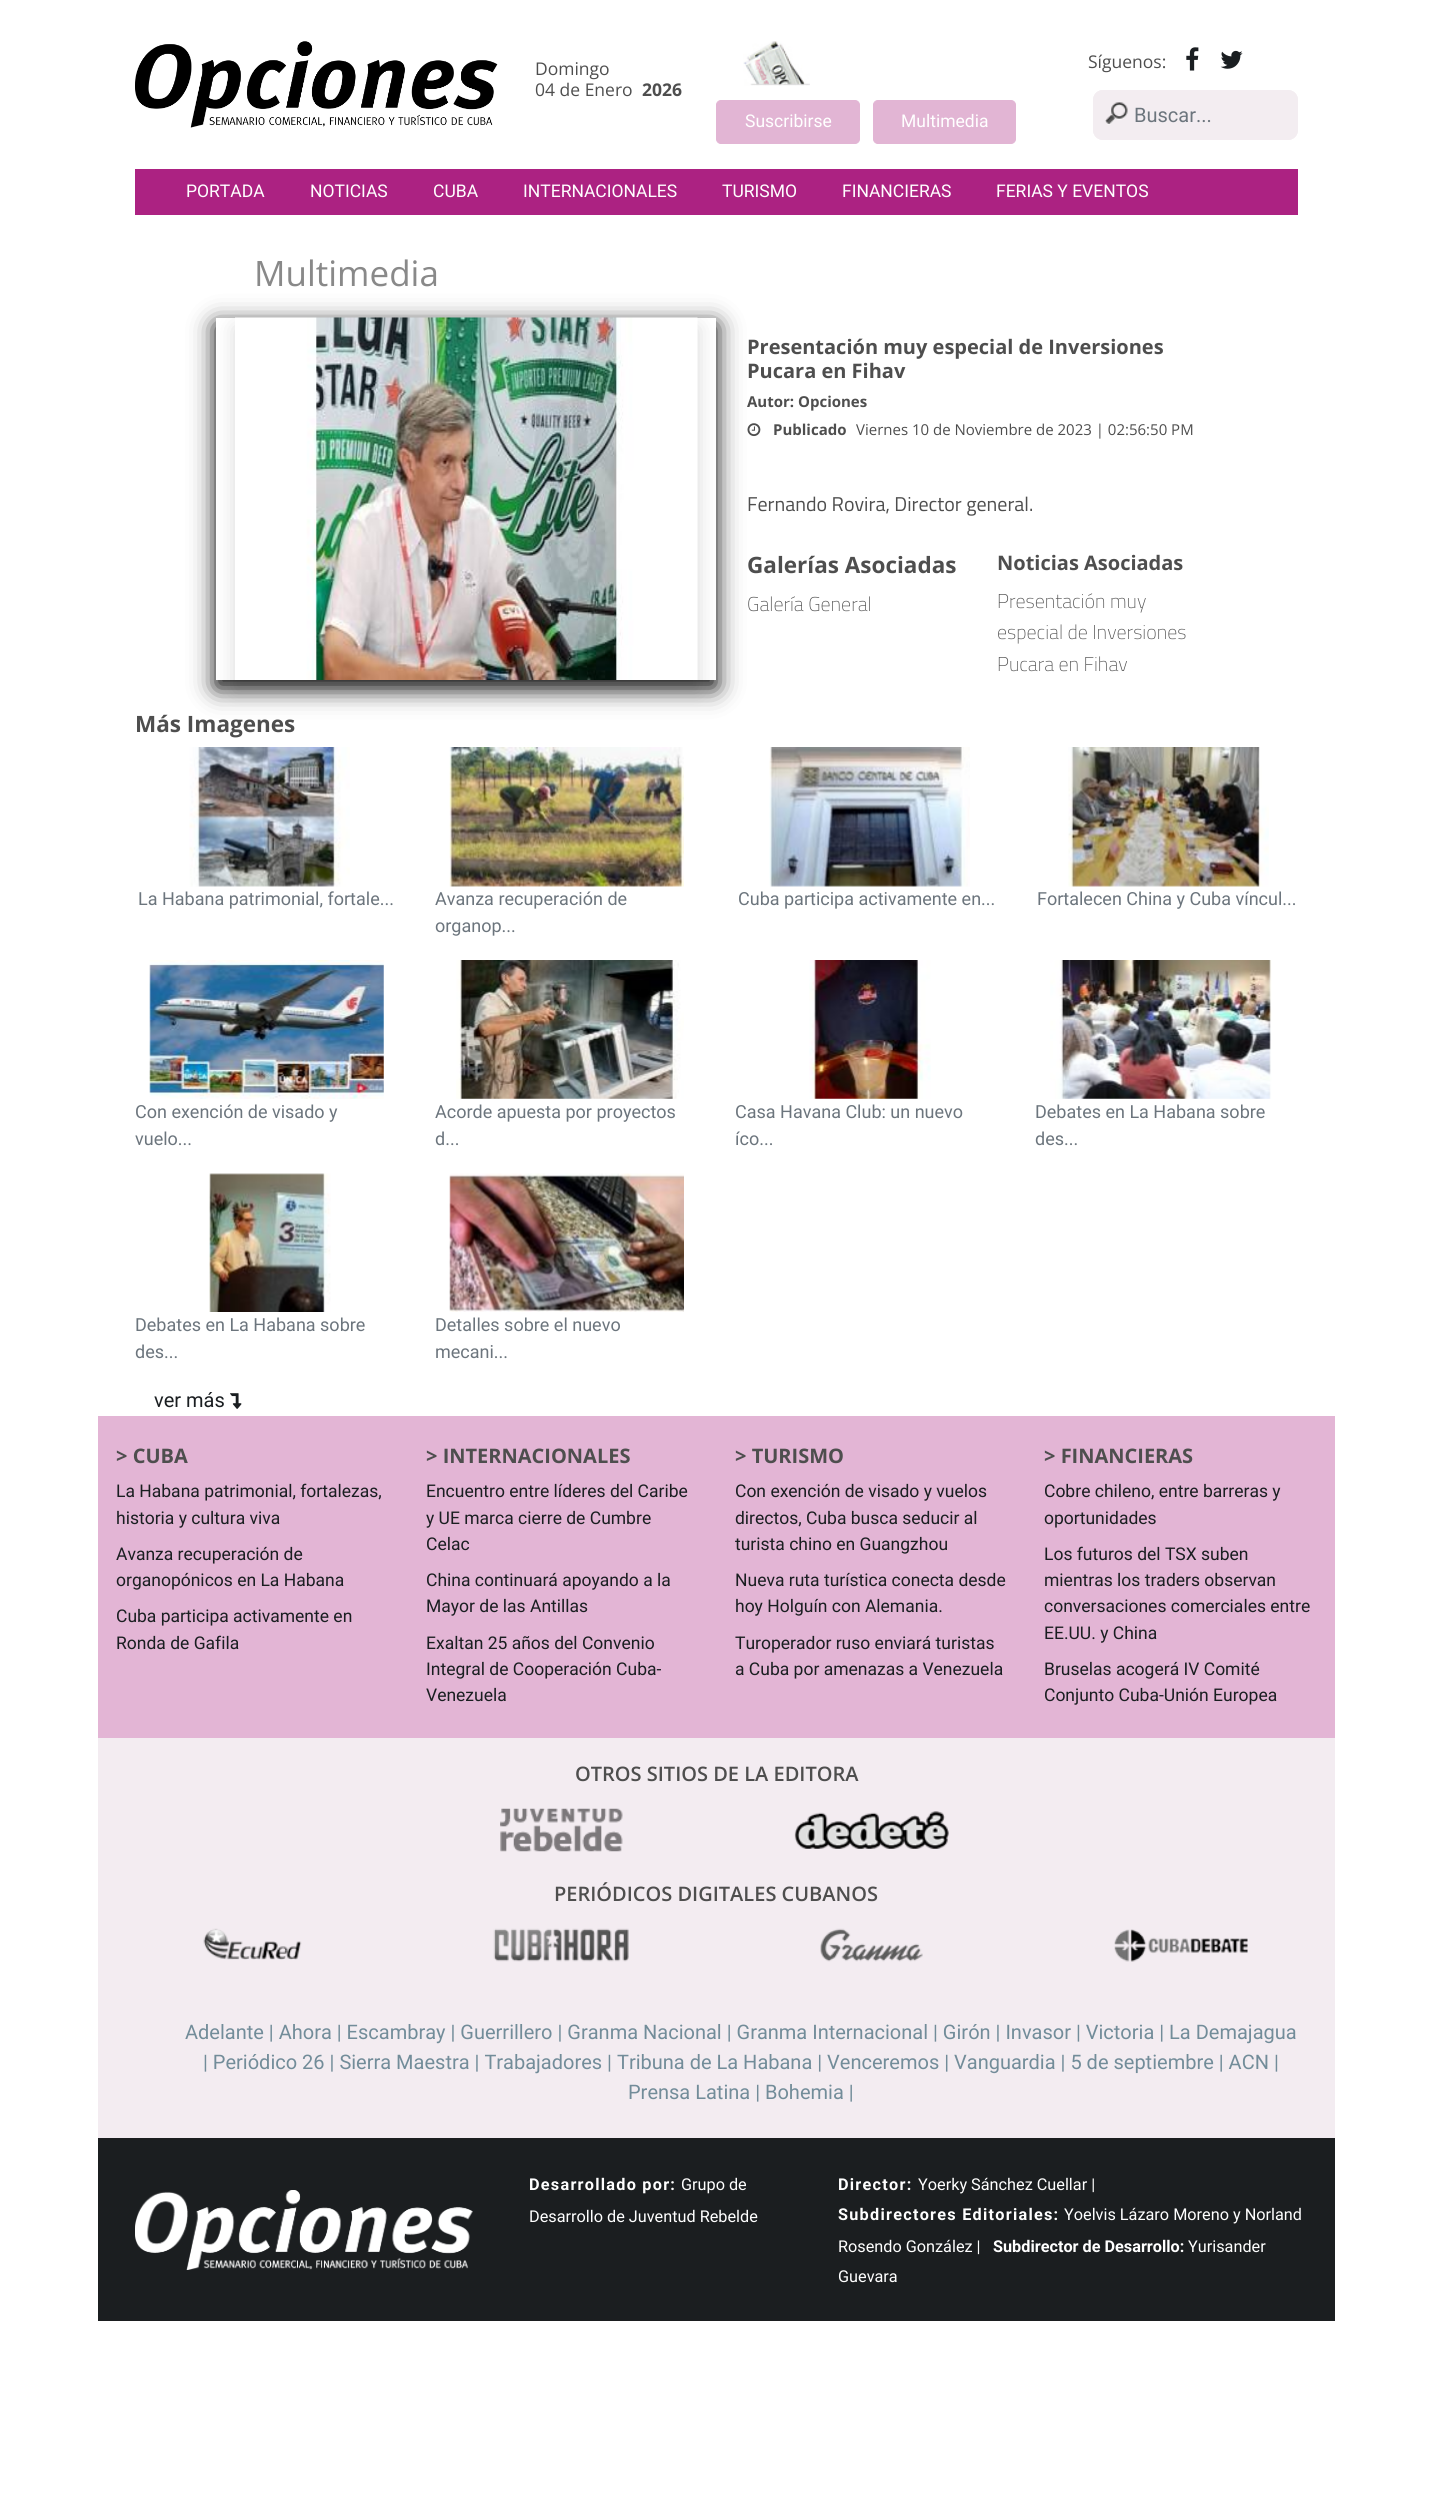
#include <cairo.h>
#include <math.h>
#include <stddef.h>

static cairo_t *ctx;

static void use_color(int r, int g, int b) {
    cairo_set_source_rgb(ctx, r / 255.0, g / 255.0, b / 255.0);
}

static void spaced_text(double x, double y, const char *s, double letter, double word) {
    cairo_move_to(ctx, x, y);
    while (*s) {
        char ch[5] = {0};
        int n = 0;
        do ch[n++] = *s++; while ((*s & 0xC0) == 0x80);
        cairo_show_text(ctx, ch);
        cairo_rel_move_to(ctx, letter + word * (*ch == ' '), 0);
    }
}

static void round_rect(double x, double y, double w, double h, double r) {
    cairo_new_sub_path(ctx);
    cairo_arc(ctx, x + w - r, y + h - r, r, 0, M_PI / 2);
    cairo_arc(ctx, x + r, y + h - r, r, M_PI / 2, M_PI);
    cairo_arc(ctx, x + r, y + r, r, M_PI, 1.5 * M_PI);
    cairo_arc(ctx, x + w - r, y + r, r, 1.5 * M_PI, 2 * M_PI);
    cairo_close_path(ctx);
}

static void shadow(double x, double y, double w, double h, double r, double blur, double alpha) {
    cairo_push_group_with_content(ctx, CAIRO_CONTENT_ALPHA);
    cairo_set_operator(ctx, CAIRO_OPERATOR_SOURCE);
    for (int i = 15; i >= -15 && fmin(w, h) + blur * i / 3 > 0; i -= 2) {
        double e = blur * i / 6;
        cairo_set_source_rgba(ctx, 0, 0, 0, alpha * erfc((i - 1) / 8.5) / 2);
        round_rect(x - e, y - e, w + 2 * e, h + 2 * e, fmax(0, fmin(r + e + blur * .6, fmin(w, h) / 2 + e)));
        cairo_fill(ctx);
    }
    cairo_pattern_t *soft = cairo_pop_group(ctx);
    cairo_mask(ctx, soft);
    cairo_pattern_destroy(soft);
}

static void picture(const char *path, double x, double y, double w, double h) {
    cairo_surface_t *image = cairo_image_surface_create_from_png(path);
    cairo_save(ctx);
    cairo_set_source_surface(ctx, image, x, y);
    cairo_rectangle(ctx, x, y, w, h);
    cairo_fill(ctx);
    cairo_restore(ctx);
    cairo_surface_destroy(image);
}

int main(void) {
    cairo_surface_t *surface = cairo_image_surface_create(CAIRO_FORMAT_RGB24, 1432, 2504);
    ctx = cairo_create(surface);
    cairo_font_options_t *options = cairo_font_options_create();
    cairo_font_options_set_hint_metrics(options, CAIRO_HINT_METRICS_OFF);
    cairo_font_options_set_hint_style(options, CAIRO_HINT_STYLE_NONE);
    cairo_set_font_options(ctx, options);
    cairo_set_miter_limit(ctx, 4);
    use_color(255, 255, 255);
    cairo_paint(ctx);
    picture("img1.png", 135, 41, 363, 87);
    cairo_select_font_face(ctx, "Open Sans", CAIRO_FONT_SLANT_NORMAL, CAIRO_FONT_WEIGHT_NORMAL);
    cairo_set_font_size(ctx, 17.5);
    use_color(78, 78, 78);
    cairo_move_to(ctx, 535, 75);
    cairo_show_text(ctx, "Domingo");
    cairo_move_to(ctx, 535, 96);
    cairo_show_text(ctx, "04 de Enero");
    cairo_select_font_face(ctx, "Open Sans", CAIRO_FONT_SLANT_NORMAL, CAIRO_FONT_WEIGHT_BOLD);
    cairo_move_to(ctx, 642, 96);
    cairo_show_text(ctx, "2026");
    cairo_select_font_face(ctx, "Open Sans", CAIRO_FONT_SLANT_NORMAL, CAIRO_FONT_WEIGHT_NORMAL);
    cairo_move_to(ctx, 1088, 68);
    cairo_show_text(ctx, "Síguenos:");
    picture("img2.png", 1186, 47, 13, 24);
    picture("img3.png", 1220, 50, 23, 19);
    use_color(243, 237, 241);
    round_rect(1093, 90, 205, 50, 10);
    cairo_fill(ctx);
    picture("img4.png", 1105, 102, 23, 23);
    round_rect(1093.5, 90.5, 204, 49, 9.5);
    cairo_set_line_width(ctx, 1);
    cairo_stroke(ctx);
    cairo_select_font_face(ctx, "Roboto", CAIRO_FONT_SLANT_NORMAL, CAIRO_FONT_WEIGHT_NORMAL);
    cairo_set_font_size(ctx, 20);
    use_color(108, 117, 125);
    cairo_move_to(ctx, 1134, 122);
    cairo_show_text(ctx, "Buscar...");
    picture("img5.png", 743, 41, 67, 45);
    use_color(226, 181, 212);
    round_rect(716.5, 100.5, 143, 43, 4.5);
    cairo_fill_preserve(ctx);
    cairo_stroke(ctx);
    cairo_set_font_size(ctx, 17.5);
    use_color(255, 255, 255);
    cairo_move_to(ctx, 745, 127);
    cairo_show_text(ctx, "Suscribirse");
    use_color(226, 181, 212);
    round_rect(873.5, 100.5, 142, 43, 4.5);
    cairo_fill_preserve(ctx);
    cairo_stroke(ctx);
    use_color(255, 255, 255);
    cairo_move_to(ctx, 901, 127);
    cairo_show_text(ctx, "Multimedia");
    use_color(172, 34, 130);
    cairo_rectangle(ctx, 135, 169, 1163, 46);
    cairo_fill(ctx);
    use_color(255, 255, 255);
    cairo_move_to(ctx, 186, 197);
    cairo_show_text(ctx, "PORTADA");
    cairo_move_to(ctx, 310, 197);
    cairo_show_text(ctx, "NOTICIAS");
    cairo_move_to(ctx, 433, 197);
    cairo_show_text(ctx, "CUBA");
    cairo_move_to(ctx, 523, 197);
    cairo_show_text(ctx, "INTERNACIONALES");
    cairo_move_to(ctx, 722, 197);
    cairo_show_text(ctx, "TURISMO");
    cairo_move_to(ctx, 842, 197);
    cairo_show_text(ctx, "FINANCIERAS");
    cairo_move_to(ctx, 996, 197);
    cairo_show_text(ctx, "FERIAS Y EVENTOS");
    cairo_select_font_face(ctx, "Open Sans", CAIRO_FONT_SLANT_NORMAL, CAIRO_FONT_WEIGHT_NORMAL);
    cairo_set_font_size(ctx, 35);
    use_color(137, 137, 137);
    cairo_move_to(ctx, 254, 286);
    cairo_show_text(ctx, "Multimedia");
    cairo_save(ctx);
    cairo_set_fill_rule(ctx, CAIRO_FILL_RULE_EVEN_ODD);
    cairo_new_path(ctx);
    cairo_move_to(ctx, 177, 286);
    cairo_line_to(ctx, 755, 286);
    cairo_line_to(ctx, 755, 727);
    cairo_line_to(ctx, 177, 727);
    cairo_close_path(ctx);
    cairo_move_to(ctx, 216, 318);
    cairo_line_to(ctx, 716, 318);
    cairo_line_to(ctx, 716, 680);
    cairo_line_to(ctx, 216, 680);
    cairo_close_path(ctx);
    cairo_clip(ctx);
    use_color(0, 0, 0);
    shadow(216, 325, 500, 363, 0, 12.5, 0.9);
    cairo_restore(ctx);
    cairo_save(ctx);
    cairo_set_fill_rule(ctx, CAIRO_FILL_RULE_EVEN_ODD);
    cairo_new_path(ctx);
    cairo_move_to(ctx, 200, 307);
    cairo_line_to(ctx, 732, 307);
    cairo_line_to(ctx, 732, 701);
    cairo_line_to(ctx, 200, 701);
    cairo_close_path(ctx);
    cairo_move_to(ctx, 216, 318);
    cairo_line_to(ctx, 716, 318);
    cairo_line_to(ctx, 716, 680);
    cairo_line_to(ctx, 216, 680);
    cairo_close_path(ctx);
    cairo_clip(ctx);
    use_color(0, 0, 0);
    shadow(216, 323, 500, 362, 0, 5, 0.2);
    cairo_restore(ctx);
    use_color(0, 0, 0);
    shadow(235, 328, 463, 362, 0, 10, 0.15);
    picture("img6.png", 235, 317, 463, 363);
    cairo_select_font_face(ctx, "Open Sans", CAIRO_FONT_SLANT_NORMAL, CAIRO_FONT_WEIGHT_BOLD);
    cairo_set_font_size(ctx, 20);
    use_color(78, 78, 78);
    cairo_move_to(ctx, 747, 354);
    cairo_show_text(ctx, "Presentación muy especial de Inversiones");
    cairo_move_to(ctx, 747, 378);
    cairo_show_text(ctx, "Pucara en Fihav");
    cairo_set_font_size(ctx, 15);
    cairo_move_to(ctx, 747, 407);
    cairo_show_text(ctx, "Autor: Opciones");
    picture("img7.png", 747, 423, 14, 14);
    cairo_move_to(ctx, 773, 435);
    cairo_show_text(ctx, "Publicado");
    cairo_select_font_face(ctx, "Open Sans", CAIRO_FONT_SLANT_NORMAL, CAIRO_FONT_WEIGHT_NORMAL);
    cairo_move_to(ctx, 856, 435);
    cairo_show_text(ctx, "Viernes 10 de Noviembre de 2023 | 02:56:50 PM");
    cairo_select_font_face(ctx, "Titillium Web", CAIRO_FONT_SLANT_NORMAL, CAIRO_FONT_WEIGHT_NORMAL);
    cairo_set_font_size(ctx, 20);
    cairo_move_to(ctx, 747, 511);
    cairo_show_text(ctx, "Fernando Rovira, Director general.");
    cairo_select_font_face(ctx, "Open Sans", CAIRO_FONT_SLANT_NORMAL, CAIRO_FONT_WEIGHT_BOLD);
    cairo_set_font_size(ctx, 22.5);
    cairo_move_to(ctx, 747, 573);
    cairo_show_text(ctx, "Galerías Asociadas");
    cairo_select_font_face(ctx, "Titillium Web Light", CAIRO_FONT_SLANT_NORMAL, CAIRO_FONT_WEIGHT_NORMAL);
    cairo_set_font_size(ctx, 20);
    cairo_move_to(ctx, 747, 611);
    cairo_show_text(ctx, "Galería General");
    cairo_select_font_face(ctx, "Open Sans", CAIRO_FONT_SLANT_NORMAL, CAIRO_FONT_WEIGHT_BOLD);
    cairo_move_to(ctx, 997, 570);
    cairo_show_text(ctx, "Noticias Asociadas");
    cairo_select_font_face(ctx, "Titillium Web Light", CAIRO_FONT_SLANT_NORMAL, CAIRO_FONT_WEIGHT_NORMAL);
    cairo_move_to(ctx, 997, 608);
    cairo_show_text(ctx, "Presentación muy");
    cairo_move_to(ctx, 997, 639);
    cairo_show_text(ctx, "especial de Inversiones");
    cairo_move_to(ctx, 997, 671);
    cairo_show_text(ctx, "Pucara en Fihav");
    cairo_select_font_face(ctx, "Open Sans", CAIRO_FONT_SLANT_NORMAL, CAIRO_FONT_WEIGHT_BOLD);
    cairo_set_font_size(ctx, 22.5);
    cairo_move_to(ctx, 135, 732);
    cairo_show_text(ctx, "Más Imagenes");
    picture("img8.png", 189, 747, 161, 140);
    cairo_select_font_face(ctx, "Roboto", CAIRO_FONT_SLANT_NORMAL, CAIRO_FONT_WEIGHT_NORMAL);
    cairo_set_font_size(ctx, 18);
    use_color(108, 117, 125);
    cairo_move_to(ctx, 138, 905);
    cairo_show_text(ctx, "La Habana patrimonial, fortale...");
    picture("img9.png", 449, 747, 235, 140);
    cairo_move_to(ctx, 435, 905);
    cairo_show_text(ctx, "Avanza recuperación de");
    cairo_move_to(ctx, 435, 932);
    cairo_show_text(ctx, "organop...");
    picture("img10.png", 769, 747, 201, 140);
    cairo_move_to(ctx, 738, 905);
    cairo_show_text(ctx, "Cuba participa activamente en...");
    picture("img11.png", 1068, 747, 201, 140);
    cairo_move_to(ctx, 1037, 905);
    cairo_show_text(ctx, "Fortalecen China y Cuba víncul...");
    picture("img12.png", 149, 960, 235, 139);
    cairo_move_to(ctx, 135, 1118);
    cairo_show_text(ctx, "Con exención de visado y");
    cairo_move_to(ctx, 135, 1145);
    cairo_show_text(ctx, "vuelo...");
    picture("img13.png", 456, 960, 228, 139);
    cairo_move_to(ctx, 435, 1118);
    cairo_show_text(ctx, "Acorde apuesta por proyectos");
    cairo_move_to(ctx, 435, 1145);
    cairo_show_text(ctx, "d...");
    picture("img14.png", 809, 960, 122, 139);
    cairo_move_to(ctx, 735, 1118);
    cairo_show_text(ctx, "Casa Havana Club: un nuevo");
    cairo_move_to(ctx, 735, 1145);
    cairo_show_text(ctx, "íco...");
    picture("img15.png", 1050, 960, 222, 139);
    cairo_move_to(ctx, 1035, 1118);
    cairo_show_text(ctx, "Debates en La Habana sobre");
    cairo_move_to(ctx, 1035, 1145);
    cairo_show_text(ctx, "des...");
    picture("img16.png", 209, 1173, 122, 139);
    cairo_move_to(ctx, 135, 1331);
    cairo_show_text(ctx, "Debates en La Habana sobre");
    cairo_move_to(ctx, 135, 1358);
    cairo_show_text(ctx, "des...");
    picture("img17.png", 449, 1173, 235, 139);
    cairo_move_to(ctx, 435, 1331);
    cairo_show_text(ctx, "Detalles sobre el nuevo");
    cairo_move_to(ctx, 435, 1358);
    cairo_show_text(ctx, "mecani...");
    cairo_set_font_size(ctx, 20);
    use_color(26, 30, 33);
    cairo_move_to(ctx, 154, 1407);
    cairo_show_text(ctx, "ver más");
    picture("img18.png", 230, 1393, 12, 16);
    use_color(227, 181, 213);
    cairo_rectangle(ctx, 98, 1416, 1237, 322);
    cairo_fill(ctx);
    cairo_select_font_face(ctx, "Open Sans", CAIRO_FONT_SLANT_NORMAL, CAIRO_FONT_WEIGHT_BOLD);
    use_color(78, 78, 78);
    cairo_move_to(ctx, 116, 1463);
    cairo_show_text(ctx, "> CUBA");
    cairo_select_font_face(ctx, "Roboto", CAIRO_FONT_SLANT_NORMAL, CAIRO_FONT_WEIGHT_NORMAL);
    cairo_set_font_size(ctx, 17.5);
    use_color(26, 30, 33);
    cairo_move_to(ctx, 116, 1497);
    cairo_show_text(ctx, "La Habana patrimonial, fortalezas,");
    cairo_move_to(ctx, 116, 1524);
    cairo_show_text(ctx, "historia y cultura viva");
    cairo_move_to(ctx, 116, 1560);
    cairo_show_text(ctx, "Avanza recuperación de");
    cairo_move_to(ctx, 116, 1586);
    cairo_show_text(ctx, "organopónicos en La Habana");
    cairo_move_to(ctx, 116, 1622);
    cairo_show_text(ctx, "Cuba participa activamente en");
    cairo_move_to(ctx, 116, 1649);
    cairo_show_text(ctx, "Ronda de Gafila");
    cairo_select_font_face(ctx, "Open Sans", CAIRO_FONT_SLANT_NORMAL, CAIRO_FONT_WEIGHT_BOLD);
    cairo_set_font_size(ctx, 20);
    use_color(78, 78, 78);
    cairo_move_to(ctx, 426, 1463);
    cairo_show_text(ctx, "> INTERNACIONALES");
    cairo_select_font_face(ctx, "Roboto", CAIRO_FONT_SLANT_NORMAL, CAIRO_FONT_WEIGHT_NORMAL);
    cairo_set_font_size(ctx, 17.5);
    use_color(26, 30, 33);
    cairo_move_to(ctx, 426, 1497);
    cairo_show_text(ctx, "Encuentro entre líderes del Caribe");
    cairo_move_to(ctx, 426, 1524);
    cairo_show_text(ctx, "y UE marca cierre de Cumbre");
    cairo_move_to(ctx, 426, 1550);
    cairo_show_text(ctx, "Celac");
    cairo_move_to(ctx, 426, 1586);
    cairo_show_text(ctx, "China continuará apoyando a la");
    cairo_move_to(ctx, 426, 1612);
    cairo_show_text(ctx, "Mayor de las Antillas");
    cairo_move_to(ctx, 426, 1649);
    cairo_show_text(ctx, "Exaltan 25 años del Convenio");
    cairo_move_to(ctx, 426, 1675);
    cairo_show_text(ctx, "Integral de Cooperación Cuba-");
    cairo_move_to(ctx, 426, 1701);
    cairo_show_text(ctx, "Venezuela");
    cairo_select_font_face(ctx, "Open Sans", CAIRO_FONT_SLANT_NORMAL, CAIRO_FONT_WEIGHT_BOLD);
    cairo_set_font_size(ctx, 20);
    use_color(78, 78, 78);
    cairo_move_to(ctx, 735, 1463);
    cairo_show_text(ctx, "> TURISMO");
    cairo_select_font_face(ctx, "Roboto", CAIRO_FONT_SLANT_NORMAL, CAIRO_FONT_WEIGHT_NORMAL);
    cairo_set_font_size(ctx, 17.5);
    use_color(26, 30, 33);
    cairo_move_to(ctx, 735, 1497);
    cairo_show_text(ctx, "Con exención de visado y vuelos");
    cairo_move_to(ctx, 735, 1524);
    cairo_show_text(ctx, "directos, Cuba busca seducir al");
    cairo_move_to(ctx, 735, 1550);
    cairo_show_text(ctx, "turista chino en Guangzhou");
    cairo_move_to(ctx, 735, 1586);
    cairo_show_text(ctx, "Nueva ruta turística conecta desde");
    cairo_move_to(ctx, 735, 1612);
    cairo_show_text(ctx, "hoy Holguín con Alemania.");
    cairo_move_to(ctx, 735, 1649);
    cairo_show_text(ctx, "Turoperador ruso enviará turistas");
    cairo_move_to(ctx, 735, 1675);
    cairo_show_text(ctx, "a Cuba por amenazas a Venezuela");
    cairo_select_font_face(ctx, "Open Sans", CAIRO_FONT_SLANT_NORMAL, CAIRO_FONT_WEIGHT_BOLD);
    cairo_set_font_size(ctx, 20);
    use_color(78, 78, 78);
    cairo_move_to(ctx, 1044, 1463);
    cairo_show_text(ctx, "> FINANCIERAS");
    cairo_select_font_face(ctx, "Roboto", CAIRO_FONT_SLANT_NORMAL, CAIRO_FONT_WEIGHT_NORMAL);
    cairo_set_font_size(ctx, 17.5);
    use_color(26, 30, 33);
    cairo_move_to(ctx, 1044, 1497);
    cairo_show_text(ctx, "Cobre chileno, entre barreras y");
    cairo_move_to(ctx, 1044, 1524);
    cairo_show_text(ctx, "oportunidades");
    cairo_move_to(ctx, 1044, 1560);
    cairo_show_text(ctx, "Los futuros del TSX suben");
    cairo_move_to(ctx, 1044, 1586);
    cairo_show_text(ctx, "mientras los traders observan");
    cairo_move_to(ctx, 1044, 1612);
    cairo_show_text(ctx, "conversaciones comerciales entre");
    cairo_move_to(ctx, 1044, 1639);
    cairo_show_text(ctx, "EE.UU. y China");
    cairo_move_to(ctx, 1044, 1675);
    cairo_show_text(ctx, "Bruselas acogerá IV Comité");
    cairo_move_to(ctx, 1044, 1701);
    cairo_show_text(ctx, "Conjunto Cuba-Unión Europea");
    use_color(243, 236, 241);
    cairo_rectangle(ctx, 98, 1738, 1237, 400);
    cairo_fill(ctx);
    cairo_select_font_face(ctx, "Open Sans SemiBold", CAIRO_FONT_SLANT_NORMAL, CAIRO_FONT_WEIGHT_NORMAL);
    cairo_set_font_size(ctx, 20);
    use_color(78, 78, 78);
    cairo_move_to(ctx, 575, 1781);
    cairo_show_text(ctx, "OTROS SITIOS DE LA EDITORA");
    picture("img19.png", 500, 1808, 123, 44);
    picture("img20.png", 794, 1811, 155, 38);
    cairo_move_to(ctx, 554, 1901);
    cairo_show_text(ctx, "PERIÓDICOS DIGITALES CUBANOS");
    picture("img21.png", 203, 1928, 99, 32);
    picture("img22.png", 493, 1928, 136, 34);
    picture("img23.png", 820, 1928, 103, 34);
    picture("img24.png", 1114, 1929, 134, 33);
    cairo_select_font_face(ctx, "Roboto", CAIRO_FONT_SLANT_NORMAL, CAIRO_FONT_WEIGHT_NORMAL);
    use_color(114, 140, 153);
    cairo_move_to(ctx, 185, 2039);
    cairo_show_text(ctx, "Adelante | Ahora | Escambray | Guerrillero | Granma Nacional | Granma Internacional | Girón | Invasor | Victoria | La Demajagua");
    cairo_move_to(ctx, 203, 2069);
    cairo_show_text(ctx, "| Periódico 26 | Sierra Maestra | Trabajadores | Tribuna de La Habana | Venceremos | Vanguardia | 5 de septiembre | ACN |");
    cairo_move_to(ctx, 628, 2099);
    cairo_show_text(ctx, "Prensa Latina | Bohemia |");
    use_color(27, 30, 32);
    cairo_rectangle(ctx, 98, 2138, 1237, 183);
    cairo_fill(ctx);
    picture("img25.png", 135, 2190, 338, 80);
    cairo_select_font_face(ctx, "Roboto", CAIRO_FONT_SLANT_NORMAL, CAIRO_FONT_WEIGHT_BOLD);
    cairo_set_font_size(ctx, 16.25);
    use_color(255, 255, 255);
    spaced_text(529, 2190, "Desarrollado por:", 1.25, 0);
    cairo_select_font_face(ctx, "Roboto", CAIRO_FONT_SLANT_NORMAL, CAIRO_FONT_WEIGHT_NORMAL);
    cairo_move_to(ctx, 681, 2190);
    cairo_show_text(ctx, "Grupo de");
    cairo_move_to(ctx, 529, 2222);
    cairo_show_text(ctx, "Desarrollo de Juventud Rebelde");
    cairo_select_font_face(ctx, "Roboto", CAIRO_FONT_SLANT_NORMAL, CAIRO_FONT_WEIGHT_BOLD);
    spaced_text(838, 2190, "Director:", 1.25, 0);
    cairo_select_font_face(ctx, "Roboto", CAIRO_FONT_SLANT_NORMAL, CAIRO_FONT_WEIGHT_NORMAL);
    cairo_move_to(ctx, 918, 2190);
    cairo_show_text(ctx, "Yoerky Sánchez Cuellar |");
    cairo_select_font_face(ctx, "Roboto", CAIRO_FONT_SLANT_NORMAL, CAIRO_FONT_WEIGHT_BOLD);
    spaced_text(838, 2220, "Subdirectores Editoriales:", 1.25, 0);
    cairo_select_font_face(ctx, "Roboto", CAIRO_FONT_SLANT_NORMAL, CAIRO_FONT_WEIGHT_NORMAL);
    cairo_move_to(ctx, 1064, 2220);
    cairo_show_text(ctx, "Yoelvis Lázaro Moreno y Norland");
    cairo_move_to(ctx, 838, 2252);
    cairo_show_text(ctx, "Rosendo González |");
    cairo_select_font_face(ctx, "Roboto", CAIRO_FONT_SLANT_NORMAL, CAIRO_FONT_WEIGHT_BOLD);
    cairo_move_to(ctx, 993, 2252);
    cairo_show_text(ctx, "Subdirector de Desarrollo:");
    cairo_select_font_face(ctx, "Roboto", CAIRO_FONT_SLANT_NORMAL, CAIRO_FONT_WEIGHT_NORMAL);
    cairo_move_to(ctx, 1188, 2252);
    cairo_show_text(ctx, "Yurisander");
    cairo_move_to(ctx, 838, 2282);
    cairo_show_text(ctx, "Guevara");
    cairo_surface_write_to_png(surface, "result.png");
    cairo_font_options_destroy(options);
    cairo_destroy(ctx);
    cairo_surface_destroy(surface);
    return 0;
}
